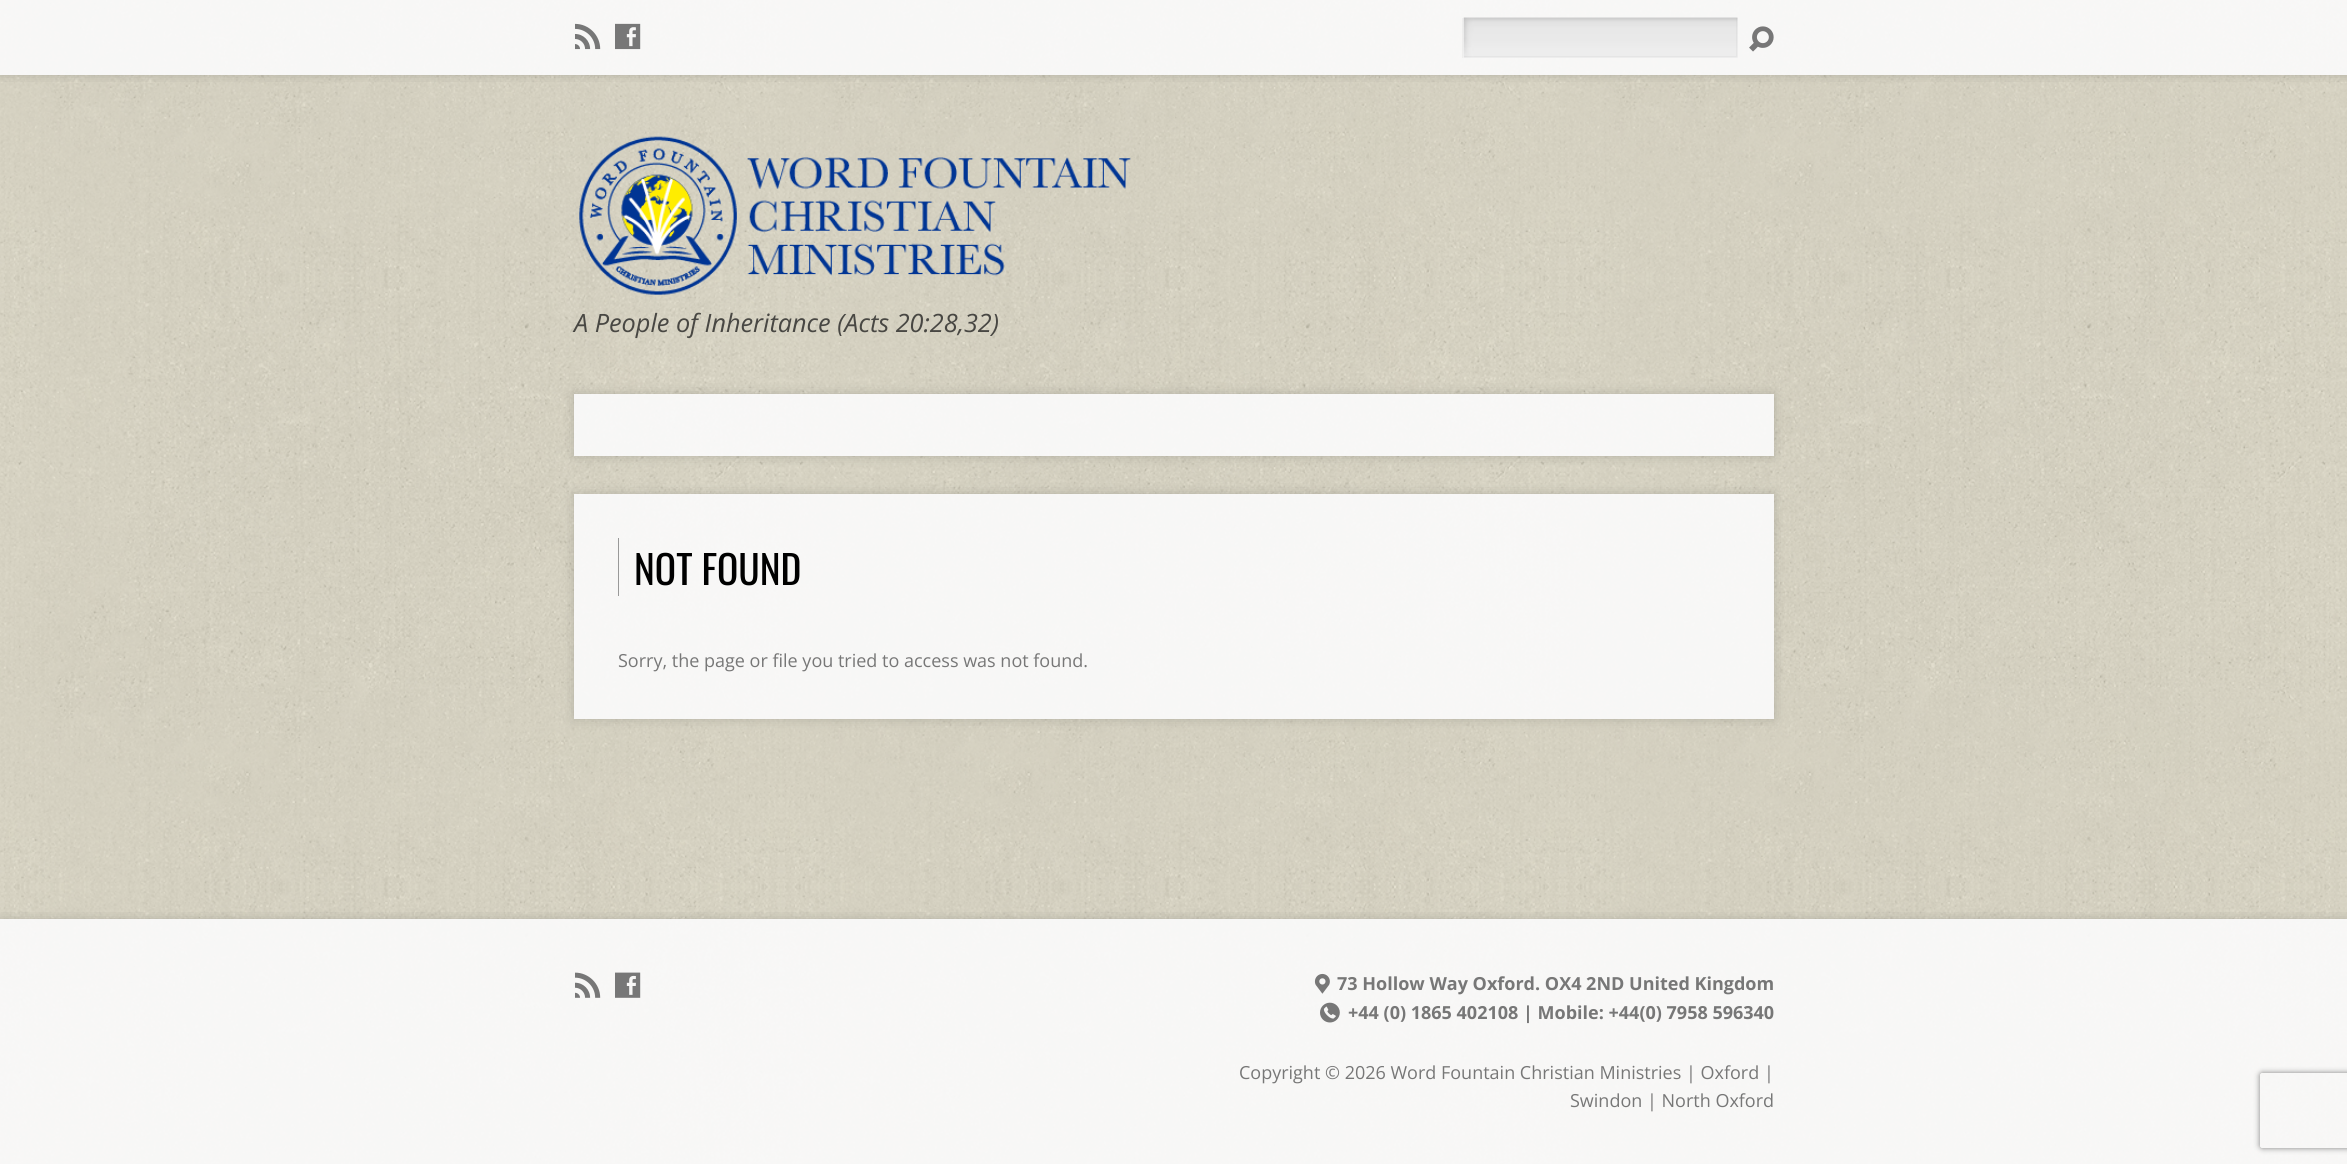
#include <cairo.h>
#include <math.h>
#include <stddef.h>

static cairo_t *ctx;

static void use_color(int r, int g, int b) {
    cairo_set_source_rgb(ctx, r / 255.0, g / 255.0, b / 255.0);
}

static void round_rect(double x, double y, double w, double h, double r) {
    cairo_new_sub_path(ctx);
    cairo_arc(ctx, x + w - r, y + h - r, r, 0, M_PI / 2);
    cairo_arc(ctx, x + r, y + h - r, r, M_PI / 2, M_PI);
    cairo_arc(ctx, x + r, y + r, r, M_PI, 1.5 * M_PI);
    cairo_arc(ctx, x + w - r, y + r, r, 1.5 * M_PI, 2 * M_PI);
    cairo_close_path(ctx);
}

static void shadow(double x, double y, double w, double h, double r, double blur, double alpha) {
    cairo_push_group_with_content(ctx, CAIRO_CONTENT_ALPHA);
    cairo_set_operator(ctx, CAIRO_OPERATOR_SOURCE);
    for (int i = 15; i >= -15 && fmin(w, h) + blur * i / 3 > 0; i -= 2) {
        double e = blur * i / 6;
        cairo_set_source_rgba(ctx, 0, 0, 0, alpha * erfc((i - 1) / 8.5) / 2);
        round_rect(x - e, y - e, w + 2 * e, h + 2 * e, fmax(0, fmin(r + e + blur * .6, fmin(w, h) / 2 + e)));
        cairo_fill(ctx);
    }
    cairo_pattern_t *soft = cairo_pop_group(ctx);
    cairo_mask(ctx, soft);
    cairo_pattern_destroy(soft);
}

static void picture(const char *path, double x, double y, double w, double h) {
    cairo_surface_t *image = cairo_image_surface_create_from_png(path);
    cairo_save(ctx);
    cairo_set_source_surface(ctx, image, x, y);
    cairo_rectangle(ctx, x, y, w, h);
    cairo_fill(ctx);
    cairo_restore(ctx);
    cairo_surface_destroy(image);
}

int main(void) {
    cairo_surface_t *surface = cairo_image_surface_create(CAIRO_FORMAT_RGB24, 2347, 1164);
    ctx = cairo_create(surface);
    cairo_font_options_t *options = cairo_font_options_create();
    cairo_font_options_set_hint_metrics(options, CAIRO_HINT_METRICS_OFF);
    cairo_font_options_set_hint_style(options, CAIRO_HINT_STYLE_NONE);
    cairo_set_font_options(ctx, options);
    cairo_set_miter_limit(ctx, 4);
    use_color(221, 216, 193);
    cairo_paint(ctx);
    picture("img1.png", 0, 0, 2347, 1164);
    cairo_save(ctx);
    cairo_rectangle(ctx, 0, 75, 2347, 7);
    cairo_clip(ctx);
    use_color(0, 0, 0);
    shadow(0, 0, 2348, 75, 0, 6, 0.15);
    cairo_restore(ctx);
    cairo_set_source_rgba(ctx, 0.98, 0.98, 0.98, 0.94);
    cairo_rectangle(ctx, 0, 0, 2347, 75);
    cairo_fill(ctx);
    picture("img2.png", 575, 23, 26, 27);
    picture("img3.png", 615, 23, 26, 27);
    use_color(255, 255, 255);
    cairo_rectangle(ctx, 1463, 18, 275, 40);
    cairo_fill(ctx);
    picture("img4.png", 1463, 17, 275, 41);
    cairo_set_source_rgba(ctx, 0.588, 0.588, 0.588, 0.1);
    cairo_new_path(ctx);
    cairo_move_to(ctx, 1738, 18);
    cairo_line_to(ctx, 1738, 58);
    cairo_line_to(ctx, 1736, 56);
    cairo_line_to(ctx, 1736, 18);
    cairo_close_path(ctx);
    cairo_fill(ctx);
    cairo_new_path(ctx);
    cairo_move_to(ctx, 1738, 58);
    cairo_line_to(ctx, 1462, 58);
    cairo_line_to(ctx, 1464, 56);
    cairo_line_to(ctx, 1736, 56);
    cairo_close_path(ctx);
    cairo_fill(ctx);
    cairo_new_path(ctx);
    cairo_move_to(ctx, 1462, 58);
    cairo_line_to(ctx, 1462, 18);
    cairo_line_to(ctx, 1464, 18);
    cairo_line_to(ctx, 1464, 56);
    cairo_close_path(ctx);
    cairo_fill(ctx);
    picture("img5.png", 1749, 26, 25, 26);
    picture("img6.png", 579, 136, 552, 159);
    cairo_select_font_face(ctx, "Open Sans", CAIRO_FONT_SLANT_ITALIC, CAIRO_FONT_WEIGHT_NORMAL);
    cairo_set_font_size(ctx, 25.25);
    use_color(72, 71, 67);
    cairo_move_to(ctx, 574, 332);
    cairo_show_text(ctx, "A People of Inheritance (Acts 20:28,32)");
    cairo_save(ctx);
    cairo_set_fill_rule(ctx, CAIRO_FILL_RULE_EVEN_ODD);
    cairo_new_path(ctx);
    cairo_move_to(ctx, 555, 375);
    cairo_line_to(ctx, 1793, 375);
    cairo_line_to(ctx, 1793, 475);
    cairo_line_to(ctx, 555, 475);
    cairo_close_path(ctx);
    cairo_move_to(ctx, 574, 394);
    cairo_line_to(ctx, 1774, 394);
    cairo_line_to(ctx, 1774, 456);
    cairo_line_to(ctx, 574, 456);
    cairo_close_path(ctx);
    cairo_clip(ctx);
    use_color(0, 0, 0);
    shadow(574, 394, 1200, 62, 0, 6, 0.15);
    cairo_restore(ctx);
    cairo_set_source_rgba(ctx, 0.98, 0.98, 0.98, 0.94);
    cairo_rectangle(ctx, 574, 394, 1200, 62);
    cairo_fill(ctx);
    cairo_save(ctx);
    cairo_set_fill_rule(ctx, CAIRO_FILL_RULE_EVEN_ODD);
    cairo_new_path(ctx);
    cairo_move_to(ctx, 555, 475);
    cairo_line_to(ctx, 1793, 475);
    cairo_line_to(ctx, 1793, 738);
    cairo_line_to(ctx, 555, 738);
    cairo_close_path(ctx);
    cairo_move_to(ctx, 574, 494);
    cairo_line_to(ctx, 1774, 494);
    cairo_line_to(ctx, 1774, 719);
    cairo_line_to(ctx, 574, 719);
    cairo_close_path(ctx);
    cairo_clip(ctx);
    use_color(0, 0, 0);
    shadow(574, 494, 1200, 225, 0, 6, 0.15);
    cairo_restore(ctx);
    cairo_rectangle(ctx, 574, 494, 1200, 225);
    cairo_fill(ctx);
    use_color(153, 153, 153);
    cairo_rectangle(ctx, 618, 538, 1, 58);
    cairo_fill(ctx);
    cairo_select_font_face(ctx, "Oswald", CAIRO_FONT_SLANT_NORMAL, CAIRO_FONT_WEIGHT_NORMAL);
    cairo_set_font_size(ctx, 39.5);
    use_color(0, 0, 0);
    cairo_move_to(ctx, 634, 585);
    cairo_show_text(ctx, "NOT FOUND");
    cairo_select_font_face(ctx, "Open Sans", CAIRO_FONT_SLANT_NORMAL, CAIRO_FONT_WEIGHT_NORMAL);
    cairo_set_font_size(ctx, 18);
    use_color(119, 119, 119);
    cairo_move_to(ctx, 618, 667);
    cairo_show_text(ctx, "Sorry, the page or file you tried to access was not found.");
    cairo_save(ctx);
    cairo_rectangle(ctx, 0, 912, 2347, 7);
    cairo_clip(ctx);
    use_color(0, 0, 0);
    shadow(0, 919, 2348, 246, 0, 6, 0.15);
    cairo_restore(ctx);
    cairo_set_source_rgba(ctx, 0.98, 0.98, 0.98, 0.94);
    cairo_rectangle(ctx, 0, 919, 2347, 245);
    cairo_fill(ctx);
    picture("img7.png", 575, 972, 26, 26);
    picture("img8.png", 615, 972, 26, 26);
    picture("img9.png", 1314, 973, 16, 21);
    cairo_select_font_face(ctx, "Open Sans", CAIRO_FONT_SLANT_NORMAL, CAIRO_FONT_WEIGHT_BOLD);
    use_color(119, 119, 119);
    cairo_move_to(ctx, 1337, 990);
    cairo_show_text(ctx, "73 Hollow Way Oxford. OX4 2ND United Kingdom");
    picture("img10.png", 1320, 1002, 20, 21);
    cairo_move_to(ctx, 1348, 1019);
    cairo_show_text(ctx, "+44 (0) 1865 402108 | Mobile: +44(0) 7958 596340");
    cairo_select_font_face(ctx, "Open Sans", CAIRO_FONT_SLANT_NORMAL, CAIRO_FONT_WEIGHT_NORMAL);
    cairo_move_to(ctx, 1239, 1079);
    cairo_show_text(ctx, "Copyright © 2026 Word Fountain Christian Ministries | Oxford |");
    cairo_move_to(ctx, 1570, 1107);
    cairo_show_text(ctx, "Swindon | North Oxford");
    cairo_save(ctx);
    cairo_set_fill_rule(ctx, CAIRO_FILL_RULE_EVEN_ODD);
    cairo_new_path(ctx);
    cairo_move_to(ctx, 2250, 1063);
    cairo_line_to(ctx, 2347, 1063);
    cairo_line_to(ctx, 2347, 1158);
    cairo_line_to(ctx, 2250, 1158);
    cairo_close_path(ctx);
    cairo_move_to(ctx, 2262.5, 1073);
    cairo_line_to(ctx, 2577.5, 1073);
    cairo_curve_to(ctx, 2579, 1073, 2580, 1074, 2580, 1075.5);
    cairo_line_to(ctx, 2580, 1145.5);
    cairo_curve_to(ctx, 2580, 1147, 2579, 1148, 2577.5, 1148);
    cairo_line_to(ctx, 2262.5, 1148);
    cairo_curve_to(ctx, 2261, 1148, 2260, 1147, 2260, 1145.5);
    cairo_line_to(ctx, 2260, 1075.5);
    cairo_curve_to(ctx, 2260, 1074, 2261, 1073, 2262.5, 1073);
    cairo_close_path(ctx);
    cairo_clip(ctx);
    use_color(128, 128, 128);
    shadow(2260, 1073, 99, 75, 2.5, 3, 1);
    cairo_restore(ctx);
    cairo_surface_write_to_png(surface, "result.png");
    cairo_font_options_destroy(options);
    cairo_destroy(ctx);
    cairo_surface_destroy(surface);
    return 0;
}
